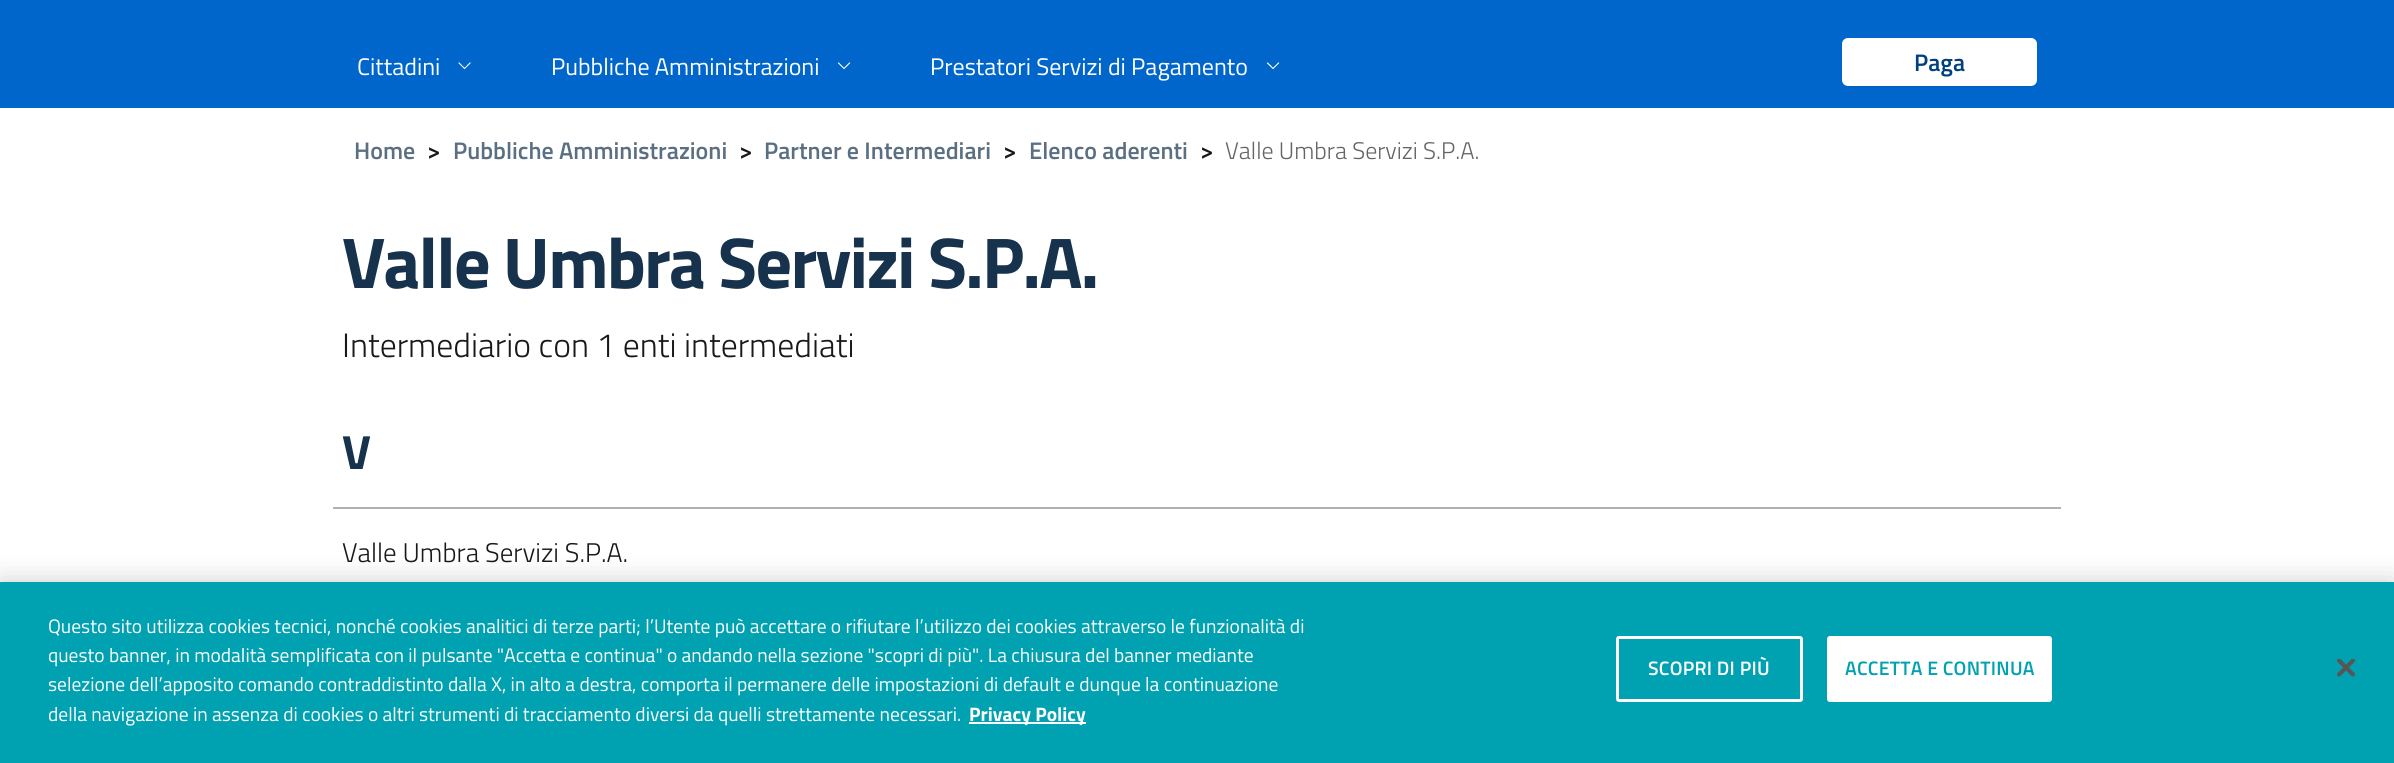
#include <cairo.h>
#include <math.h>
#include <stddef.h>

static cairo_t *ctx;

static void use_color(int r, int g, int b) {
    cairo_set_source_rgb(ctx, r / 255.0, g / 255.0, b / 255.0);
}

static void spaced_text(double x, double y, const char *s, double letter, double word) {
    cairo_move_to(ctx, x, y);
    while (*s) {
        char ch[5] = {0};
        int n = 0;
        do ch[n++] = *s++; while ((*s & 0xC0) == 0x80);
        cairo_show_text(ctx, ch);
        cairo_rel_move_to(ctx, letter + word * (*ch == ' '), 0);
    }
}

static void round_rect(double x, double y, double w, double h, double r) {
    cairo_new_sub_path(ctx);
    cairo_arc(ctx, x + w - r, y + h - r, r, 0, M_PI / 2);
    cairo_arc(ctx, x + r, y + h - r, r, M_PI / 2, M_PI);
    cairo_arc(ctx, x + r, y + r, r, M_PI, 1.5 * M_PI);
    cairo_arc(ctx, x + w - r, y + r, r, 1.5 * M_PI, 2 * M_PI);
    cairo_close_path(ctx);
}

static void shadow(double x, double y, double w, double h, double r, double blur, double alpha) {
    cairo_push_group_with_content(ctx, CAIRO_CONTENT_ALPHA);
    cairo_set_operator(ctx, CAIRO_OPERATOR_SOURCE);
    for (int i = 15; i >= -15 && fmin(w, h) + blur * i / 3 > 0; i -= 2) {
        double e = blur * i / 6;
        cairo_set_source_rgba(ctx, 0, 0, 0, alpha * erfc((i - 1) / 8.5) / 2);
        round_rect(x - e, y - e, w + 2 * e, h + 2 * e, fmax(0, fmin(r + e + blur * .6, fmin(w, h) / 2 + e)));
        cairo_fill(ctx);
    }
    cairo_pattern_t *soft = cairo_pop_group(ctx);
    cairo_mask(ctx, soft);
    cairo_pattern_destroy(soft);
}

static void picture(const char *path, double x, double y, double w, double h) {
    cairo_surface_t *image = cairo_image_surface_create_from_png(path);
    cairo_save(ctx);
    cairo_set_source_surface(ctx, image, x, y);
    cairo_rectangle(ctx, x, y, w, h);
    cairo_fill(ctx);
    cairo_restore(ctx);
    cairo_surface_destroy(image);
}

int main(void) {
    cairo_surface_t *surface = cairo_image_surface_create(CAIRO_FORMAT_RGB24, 2394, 763);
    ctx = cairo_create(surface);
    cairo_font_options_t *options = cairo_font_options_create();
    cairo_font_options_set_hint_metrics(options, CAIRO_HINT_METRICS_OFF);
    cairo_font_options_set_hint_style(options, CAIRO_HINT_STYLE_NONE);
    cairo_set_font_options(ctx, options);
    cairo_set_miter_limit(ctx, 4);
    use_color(255, 255, 255);
    cairo_paint(ctx);
    use_color(0, 102, 204);
    cairo_rectangle(ctx, 0, 0, 2394, 108);
    cairo_fill(ctx);
    cairo_select_font_face(ctx, "Titillium Web", CAIRO_FONT_SLANT_NORMAL, CAIRO_FONT_WEIGHT_NORMAL);
    cairo_set_font_size(ctx, 24);
    use_color(255, 255, 255);
    cairo_move_to(ctx, 357, 75);
    cairo_show_text(ctx, "Cittadini");
    picture("img1.png", 458, 62, 13, 8);
    cairo_move_to(ctx, 551, 75);
    cairo_show_text(ctx, "Pubbliche Amministrazioni");
    picture("img2.png", 837, 62, 14, 8);
    cairo_move_to(ctx, 930, 75);
    cairo_show_text(ctx, "Prestatori Servizi di Pagamento");
    picture("img3.png", 1266, 62, 14, 8);
    use_color(0, 0, 0);
    shadow(1842, 39, 195, 48, 6, 1, 0.07);
    use_color(255, 255, 255);
    round_rect(1842, 38, 195, 48, 6);
    cairo_fill(ctx);
    cairo_set_source_rgba(ctx, 1, 1, 1, 0.15);
    cairo_new_path(ctx);
    cairo_move_to(ctx, 1848, 39);
    cairo_line_to(ctx, 2031, 39);
    cairo_curve_to(ctx, 2034, 39, 2037, 42, 2037, 45);
    cairo_line_to(ctx, 2037, 44);
    cairo_curve_to(ctx, 2037, 41, 2034, 38, 2031, 38);
    cairo_line_to(ctx, 1848, 38);
    cairo_curve_to(ctx, 1845, 38, 1842, 41, 1842, 44);
    cairo_line_to(ctx, 1842, 45);
    cairo_curve_to(ctx, 1842, 42, 1845, 39, 1848, 39);
    cairo_close_path(ctx);
    cairo_fill(ctx);
    cairo_select_font_face(ctx, "Titillium Web SemiBold", CAIRO_FONT_SLANT_NORMAL, CAIRO_FONT_WEIGHT_NORMAL);
    use_color(0, 64, 128);
    cairo_move_to(ctx, 1914, 71);
    cairo_show_text(ctx, "Paga");
    use_color(91, 111, 130);
    cairo_move_to(ctx, 354, 159);
    cairo_show_text(ctx, "Home");
    use_color(25, 25, 26);
    cairo_move_to(ctx, 427, 159);
    cairo_show_text(ctx, ">");
    use_color(91, 111, 130);
    cairo_move_to(ctx, 453, 159);
    cairo_show_text(ctx, "Pubbliche Amministrazioni");
    use_color(25, 25, 26);
    cairo_move_to(ctx, 739, 159);
    cairo_show_text(ctx, ">");
    use_color(91, 111, 130);
    cairo_move_to(ctx, 764, 159);
    cairo_show_text(ctx, "Partner e Intermediari");
    use_color(25, 25, 26);
    cairo_move_to(ctx, 1003, 159);
    cairo_show_text(ctx, ">");
    use_color(91, 111, 130);
    cairo_move_to(ctx, 1029, 159);
    cairo_show_text(ctx, "Elenco aderenti");
    use_color(25, 25, 26);
    cairo_move_to(ctx, 1200, 159);
    cairo_show_text(ctx, ">");
    cairo_select_font_face(ctx, "Titillium Web Light", CAIRO_FONT_SLANT_NORMAL, CAIRO_FONT_WEIGHT_NORMAL);
    use_color(101, 101, 102);
    cairo_move_to(ctx, 1225, 159);
    cairo_show_text(ctx, "Valle Umbra Servizi S.P.A.");
    cairo_select_font_face(ctx, "Titillium Web", CAIRO_FONT_SLANT_NORMAL, CAIRO_FONT_WEIGHT_BOLD);
    cairo_set_font_size(ctx, 72);
    use_color(23, 50, 77);
    spaced_text(342, 288, "Valle Umbra Servizi S.P.A.", -1.8, 0);
    cairo_select_font_face(ctx, "Titillium Web Light", CAIRO_FONT_SLANT_NORMAL, CAIRO_FONT_WEIGHT_NORMAL);
    cairo_set_font_size(ctx, 33.75);
    use_color(25, 25, 26);
    cairo_move_to(ctx, 342, 357);
    cairo_show_text(ctx, "Intermediario con 1 enti intermediati");
    use_color(177, 177, 179);
    cairo_rectangle(ctx, 333, 507, 1728, 2);
    cairo_fill(ctx);
    cairo_select_font_face(ctx, "Titillium Web", CAIRO_FONT_SLANT_NORMAL, CAIRO_FONT_WEIGHT_BOLD);
    cairo_set_font_size(ctx, 48);
    use_color(23, 50, 77);
    cairo_move_to(ctx, 342, 469);
    cairo_show_text(ctx, "V");
    cairo_select_font_face(ctx, "Titillium Web Light", CAIRO_FONT_SLANT_NORMAL, CAIRO_FONT_WEIGHT_NORMAL);
    cairo_set_font_size(ctx, 27);
    use_color(25, 25, 26);
    cairo_move_to(ctx, 342, 562);
    cairo_show_text(ctx, "Valle Umbra Servizi S.P.A.");
    use_color(0, 0, 0);
    shadow(0, 582, 2394, 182, 0, 13.5, 0.2);
    use_color(0, 161, 176);
    cairo_rectangle(ctx, 0, 582, 2394, 181);
    cairo_fill(ctx);
    cairo_select_font_face(ctx, "Titillium Web", CAIRO_FONT_SLANT_NORMAL, CAIRO_FONT_WEIGHT_NORMAL);
    cairo_set_font_size(ctx, 19.5);
    use_color(255, 255, 255);
    cairo_move_to(ctx, 48, 633);
    cairo_show_text(ctx, "Questo sito utilizza cookies tecnici, nonché cookies analitici di terze parti; l’Utente può accettare o rifiutare l’utilizzo dei cookies attraverso le funzionalità di");
    cairo_move_to(ctx, 48, 662);
    cairo_show_text(ctx, "questo banner, in modalità semplificata con il pulsante \"Accetta e continua\" o andando nella sezione \"scopri di più\". La chiusura del banner mediante");
    cairo_move_to(ctx, 48, 691);
    cairo_show_text(ctx, "selezione dell’apposito comando contraddistinto dalla X, in alto a destra, comporta il permanere delle impostazioni di default e dunque la continuazione");
    cairo_move_to(ctx, 48, 721);
    cairo_show_text(ctx, "della navigazione in assenza di cookies o altri strumenti di tracciamento diversi da quelli strettamente necessari.");
    cairo_rectangle(ctx, 969, 722, 117, 2);
    cairo_fill(ctx);
    cairo_select_font_face(ctx, "Titillium Web", CAIRO_FONT_SLANT_NORMAL, CAIRO_FONT_WEIGHT_BOLD);
    cairo_move_to(ctx, 969, 721);
    cairo_show_text(ctx, "Privacy Policy");
    round_rect(1617.5, 637.5, 184, 63, 1.5);
    cairo_set_line_width(ctx, 3);
    cairo_stroke(ctx);
    cairo_select_font_face(ctx, "Titillium Web SemiBold", CAIRO_FONT_SLANT_NORMAL, CAIRO_FONT_WEIGHT_NORMAL);
    spaced_text(1648, 675, "SCOPRI DI PIÙ", 0.25, 0);
    round_rect(1828.5, 637.5, 222, 63, 1.5);
    cairo_fill_preserve(ctx);
    cairo_stroke(ctx);
    use_color(0, 161, 176);
    spaced_text(1845, 675, "ACCETTA E CONTINUA", 0.25, 0);
    picture("img4.png", 2337, 659, 18, 18);
    cairo_surface_write_to_png(surface, "result.png");
    cairo_font_options_destroy(options);
    cairo_destroy(ctx);
    cairo_surface_destroy(surface);
    return 0;
}
